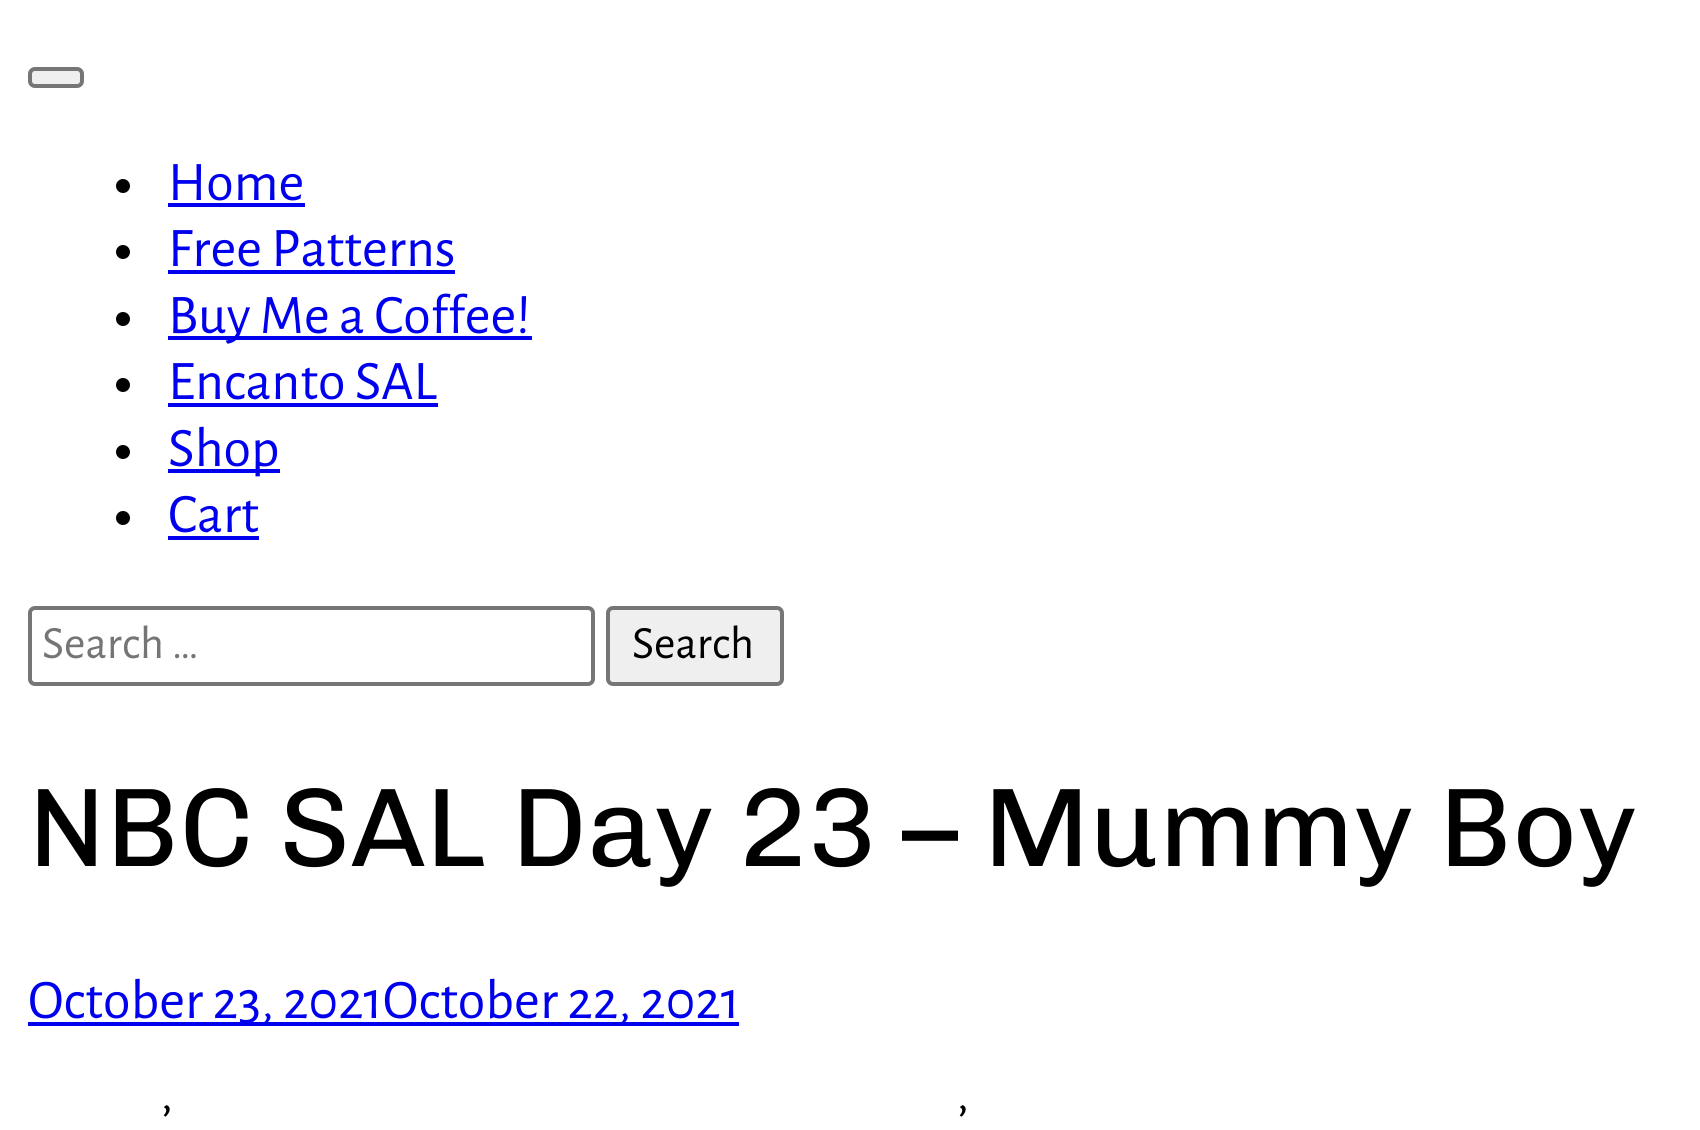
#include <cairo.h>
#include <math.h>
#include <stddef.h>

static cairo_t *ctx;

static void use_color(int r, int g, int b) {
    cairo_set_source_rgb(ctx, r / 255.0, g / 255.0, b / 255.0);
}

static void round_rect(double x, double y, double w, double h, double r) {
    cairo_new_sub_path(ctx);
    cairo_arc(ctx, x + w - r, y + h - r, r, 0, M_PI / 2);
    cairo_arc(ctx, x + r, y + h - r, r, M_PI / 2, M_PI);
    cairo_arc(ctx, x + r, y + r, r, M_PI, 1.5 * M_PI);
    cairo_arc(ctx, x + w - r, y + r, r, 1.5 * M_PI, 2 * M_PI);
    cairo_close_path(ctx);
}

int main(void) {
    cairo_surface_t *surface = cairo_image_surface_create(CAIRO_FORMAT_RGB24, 1700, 1130);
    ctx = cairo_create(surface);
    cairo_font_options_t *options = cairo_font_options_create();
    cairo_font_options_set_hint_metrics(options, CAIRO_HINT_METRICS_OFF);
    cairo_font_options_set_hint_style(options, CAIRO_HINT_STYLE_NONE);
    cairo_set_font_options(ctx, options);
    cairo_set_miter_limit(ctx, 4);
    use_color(255, 255, 255);
    cairo_paint(ctx);
    use_color(239, 239, 239);
    round_rect(30, 69, 52, 17, 5);
    cairo_fill_preserve(ctx);
    use_color(118, 118, 118);
    cairo_set_line_width(ctx, 4);
    cairo_stroke(ctx);
    use_color(0, 0, 0);
    cairo_arc(ctx, 123, 186, 7, 0, 2 * M_PI);
    cairo_fill(ctx);
    cairo_select_font_face(ctx, "Alegreya Sans", CAIRO_FONT_SLANT_NORMAL, CAIRO_FONT_WEIGHT_NORMAL);
    cairo_set_font_size(ctx, 56);
    use_color(0, 0, 238);
    cairo_move_to(ctx, 168, 200);
    cairo_show_text(ctx, "Home");
    cairo_rectangle(ctx, 168, 203, 137, 4);
    cairo_fill(ctx);
    use_color(0, 0, 0);
    cairo_arc(ctx, 123, 252, 7, 0, 2 * M_PI);
    cairo_fill(ctx);
    use_color(0, 0, 238);
    cairo_move_to(ctx, 168, 266);
    cairo_show_text(ctx, "Free Patterns");
    cairo_rectangle(ctx, 168, 270, 287, 4);
    cairo_fill(ctx);
    use_color(0, 0, 0);
    cairo_arc(ctx, 123, 319, 7, 0, 2 * M_PI);
    cairo_fill(ctx);
    use_color(0, 0, 238);
    cairo_rectangle(ctx, 168, 336, 364, 4);
    cairo_fill(ctx);
    cairo_move_to(ctx, 168, 333);
    cairo_show_text(ctx, "Buy Me a Coffee!");
    use_color(0, 0, 0);
    cairo_new_path(ctx);
    cairo_arc(ctx, 123, 385, 7, 0, 2 * M_PI);
    cairo_fill(ctx);
    use_color(0, 0, 238);
    cairo_move_to(ctx, 168, 399);
    cairo_show_text(ctx, "Encanto SAL");
    cairo_rectangle(ctx, 168, 403, 270, 4);
    cairo_fill(ctx);
    use_color(0, 0, 0);
    cairo_arc(ctx, 123, 452, 7, 0, 2 * M_PI);
    cairo_fill(ctx);
    use_color(0, 0, 238);
    cairo_rectangle(ctx, 168, 469, 112, 4);
    cairo_fill(ctx);
    cairo_move_to(ctx, 168, 466);
    cairo_show_text(ctx, "Shop");
    use_color(0, 0, 0);
    cairo_new_path(ctx);
    cairo_arc(ctx, 123, 518, 7, 0, 2 * M_PI);
    cairo_fill(ctx);
    use_color(0, 0, 238);
    cairo_move_to(ctx, 168, 532);
    cairo_show_text(ctx, "Cart");
    cairo_rectangle(ctx, 168, 536, 91, 4);
    cairo_fill(ctx);
    round_rect(30, 608, 563, 76, 5);
    use_color(118, 118, 118);
    cairo_stroke(ctx);
    cairo_set_font_size(ctx, 46.5);
    use_color(117, 117, 117);
    cairo_move_to(ctx, 42, 658);
    cairo_show_text(ctx, "Search …");
    use_color(239, 239, 239);
    round_rect(608, 608, 174, 76, 5);
    cairo_fill_preserve(ctx);
    use_color(118, 118, 118);
    cairo_stroke(ctx);
    use_color(0, 0, 0);
    cairo_move_to(ctx, 632, 658);
    cairo_show_text(ctx, "Search");
    cairo_select_font_face(ctx, "Chivo Medium", CAIRO_FONT_SLANT_NORMAL, CAIRO_FONT_WEIGHT_NORMAL);
    cairo_set_font_size(ctx, 112);
    cairo_move_to(ctx, 28, 866);
    cairo_show_text(ctx, "NBC SAL Day 23 – Mummy Boy");
    use_color(0, 0, 238);
    cairo_rectangle(ctx, 28, 1022, 711, 4);
    cairo_fill(ctx);
    cairo_select_font_face(ctx, "Alegreya Sans", CAIRO_FONT_SLANT_NORMAL, CAIRO_FONT_WEIGHT_NORMAL);
    cairo_set_font_size(ctx, 56);
    cairo_move_to(ctx, 28, 1018);
    cairo_show_text(ctx, "October 23, 2021October 22, 2021");
    use_color(0, 0, 0);
    cairo_move_to(ctx, 162, 1141);
    cairo_show_text(ctx, "’");
    cairo_move_to(ctx, 958, 1141);
    cairo_show_text(ctx, "’");
    cairo_surface_write_to_png(surface, "result.png");
    cairo_font_options_destroy(options);
    cairo_destroy(ctx);
    cairo_surface_destroy(surface);
    return 0;
}
